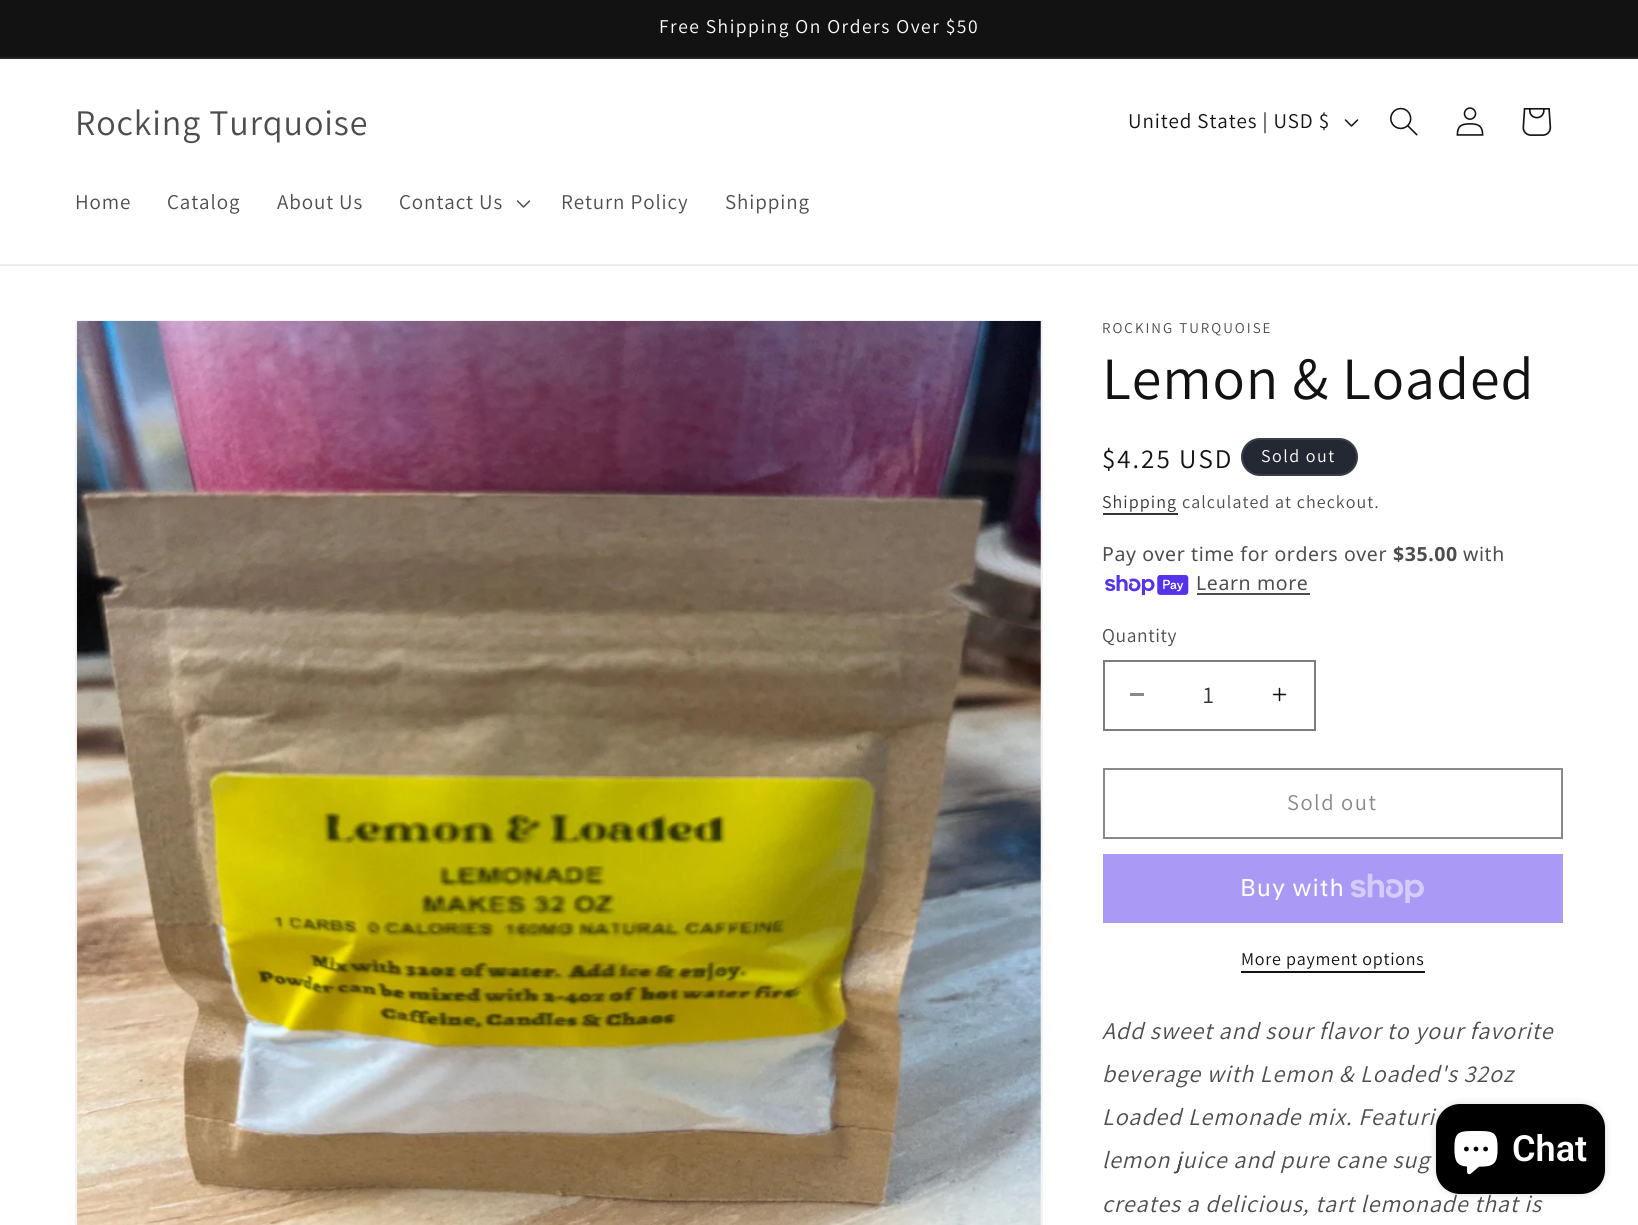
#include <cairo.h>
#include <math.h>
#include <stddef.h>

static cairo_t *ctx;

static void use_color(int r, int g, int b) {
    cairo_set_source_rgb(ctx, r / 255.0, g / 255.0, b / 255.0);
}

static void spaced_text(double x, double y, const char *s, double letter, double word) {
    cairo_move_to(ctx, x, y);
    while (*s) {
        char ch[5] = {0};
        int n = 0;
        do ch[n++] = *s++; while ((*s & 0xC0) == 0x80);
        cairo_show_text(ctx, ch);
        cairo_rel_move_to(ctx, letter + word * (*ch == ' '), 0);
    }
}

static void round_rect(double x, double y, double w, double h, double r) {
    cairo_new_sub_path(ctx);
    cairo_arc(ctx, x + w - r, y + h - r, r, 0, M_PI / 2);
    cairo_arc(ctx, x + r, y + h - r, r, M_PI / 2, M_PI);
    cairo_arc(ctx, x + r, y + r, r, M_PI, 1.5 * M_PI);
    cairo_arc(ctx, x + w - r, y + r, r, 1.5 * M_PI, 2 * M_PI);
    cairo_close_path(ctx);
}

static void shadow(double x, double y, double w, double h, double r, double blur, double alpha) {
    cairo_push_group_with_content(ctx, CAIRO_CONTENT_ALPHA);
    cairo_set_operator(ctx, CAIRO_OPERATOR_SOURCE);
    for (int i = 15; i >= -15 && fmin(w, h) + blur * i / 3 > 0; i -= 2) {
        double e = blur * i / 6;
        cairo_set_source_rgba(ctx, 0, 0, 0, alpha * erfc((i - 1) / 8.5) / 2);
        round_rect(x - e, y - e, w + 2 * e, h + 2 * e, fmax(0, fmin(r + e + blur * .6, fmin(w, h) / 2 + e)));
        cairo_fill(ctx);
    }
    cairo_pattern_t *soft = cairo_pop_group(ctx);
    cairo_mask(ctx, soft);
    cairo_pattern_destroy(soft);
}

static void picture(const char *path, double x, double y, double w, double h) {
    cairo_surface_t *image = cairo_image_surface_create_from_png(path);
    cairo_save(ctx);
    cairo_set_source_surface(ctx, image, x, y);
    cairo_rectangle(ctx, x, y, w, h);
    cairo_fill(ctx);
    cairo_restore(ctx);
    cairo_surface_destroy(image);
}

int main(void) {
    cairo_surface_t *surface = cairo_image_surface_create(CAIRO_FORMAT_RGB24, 1638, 1225);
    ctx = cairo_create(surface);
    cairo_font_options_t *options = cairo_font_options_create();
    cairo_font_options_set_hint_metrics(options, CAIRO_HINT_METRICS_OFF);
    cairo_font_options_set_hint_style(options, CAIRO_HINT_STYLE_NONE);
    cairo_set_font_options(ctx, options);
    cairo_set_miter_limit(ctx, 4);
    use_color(255, 255, 255);
    cairo_paint(ctx);
    use_color(18, 18, 18);
    cairo_rectangle(ctx, 0, 0, 1638, 57);
    cairo_fill(ctx);
    use_color(37, 37, 37);
    cairo_rectangle(ctx, 0, 57, 1638, 2);
    cairo_fill(ctx);
    cairo_select_font_face(ctx, "Assistant", CAIRO_FONT_SLANT_NORMAL, CAIRO_FONT_WEIGHT_NORMAL);
    cairo_set_font_size(ctx, 19.5);
    use_color(255, 255, 255);
    spaced_text(659, 33, "Free Shipping On Orders Over $50", 1.5, 0);
    use_color(236, 236, 236);
    cairo_rectangle(ctx, 0, 264, 1638, 2);
    cairo_fill(ctx);
    cairo_set_font_size(ctx, 36);
    use_color(77, 77, 77);
    spaced_text(75, 135, "Rocking Turquoise", 0.9, 0);
    cairo_set_font_size(ctx, 21);
    use_color(18, 18, 18);
    spaced_text(1128, 128, "United States | USD $", 0.9, 0);
    picture("img1.png", 1344, 119, 15, 8);
    picture("img2.png", 1390, 107, 28, 29);
    picture("img3.png", 1456, 107, 28, 29);
    picture("img4.png", 1522, 108, 30, 28);
    use_color(77, 77, 77);
    spaced_text(75, 209, "Home", 0.9, 0);
    spaced_text(167, 209, "Catalog", 0.9, 0);
    spaced_text(277, 209, "About Us", 0.9, 0);
    spaced_text(399, 209, "Contact Us", 0.9, 0);
    picture("img5.png", 516, 200, 15, 8);
    spaced_text(561, 209, "Return Policy", 0.9, 0);
    spaced_text(725, 209, "Shipping", 0.9, 0);
    cairo_rectangle(ctx, 76, 321, 966, 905);
    use_color(243, 243, 243);
    cairo_stroke(ctx);
    picture("img6.png", 77, 321, 964, 904);
    cairo_set_font_size(ctx, 15);
    use_color(77, 77, 77);
    spaced_text(1102, 333, "ROCKING TURQUOISE", 2, 0);
    cairo_set_font_size(ctx, 60);
    use_color(18, 18, 18);
    spaced_text(1102, 399, "Lemon & Loaded", 0.9, 0);
    cairo_set_font_size(ctx, 27);
    spaced_text(1102, 468, "$4.25 USD", 2, 0);
    use_color(36, 40, 51);
    round_rect(1241, 438, 117, 38, 19);
    cairo_fill(ctx);
    round_rect(1242, 439, 115, 36, 18);
    cairo_set_source_rgba(ctx, 1, 1, 1, 0.1);
    cairo_stroke(ctx);
    cairo_set_font_size(ctx, 18);
    use_color(255, 255, 255);
    spaced_text(1261, 462, "Sold out", 1.5, 0);
    use_color(54, 54, 54);
    spaced_text(1102, 508, "Shipping", 1.05, 0);
    cairo_rectangle(ctx, 1103, 513, 75, 2);
    cairo_fill(ctx);
    use_color(77, 77, 77);
    spaced_text(1182, 508, "calculated at checkout.", 1.05, 0);
    cairo_select_font_face(ctx, "Noto Sans", CAIRO_FONT_SLANT_NORMAL, CAIRO_FONT_WEIGHT_NORMAL);
    cairo_set_font_size(ctx, 19.5);
    spaced_text(1102, 561, "Pay over time for orders over", 0.6, 0);
    cairo_select_font_face(ctx, "Noto Sans", CAIRO_FONT_SLANT_NORMAL, CAIRO_FONT_WEIGHT_BOLD);
    spaced_text(1393, 561, "$35.00", 0.6, 0);
    cairo_select_font_face(ctx, "Noto Sans", CAIRO_FONT_SLANT_NORMAL, CAIRO_FONT_WEIGHT_NORMAL);
    spaced_text(1463, 561, "with", 0.6, 0);
    picture("img7.png", 1105, 575, 84, 21);
    spaced_text(1196, 590, "Learn more", 0.6, 0);
    cairo_rectangle(ctx, 1197, 593, 113, 2);
    cairo_fill(ctx);
    cairo_select_font_face(ctx, "Assistant", CAIRO_FONT_SLANT_NORMAL, CAIRO_FONT_WEIGHT_NORMAL);
    spaced_text(1102, 642, "Quantity", 0.6, 0);
    use_color(137, 137, 137);
    cairo_rectangle(ctx, 1130, 693, 14, 3);
    cairo_fill(ctx);
    picture("img8.png", 1272, 687, 15, 15);
    cairo_rectangle(ctx, 1104, 661, 211, 69);
    use_color(125, 125, 125);
    cairo_stroke(ctx);
    cairo_set_font_size(ctx, 24);
    use_color(54, 54, 54);
    cairo_move_to(ctx, 1203, 703);
    cairo_show_text(ctx, "1");
    cairo_rectangle(ctx, 1104, 769, 458, 69);
    use_color(137, 137, 137);
    cairo_stroke(ctx);
    cairo_set_font_size(ctx, 22.5);
    spaced_text(1287, 810, "Sold out", 1.5, 0);
    use_color(170, 153, 245);
    cairo_rectangle(ctx, 1103, 854, 460, 69);
    cairo_fill(ctx);
    cairo_select_font_face(ctx, "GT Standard", CAIRO_FONT_SLANT_NORMAL, CAIRO_FONT_WEIGHT_NORMAL);
    cairo_set_font_size(ctx, 24);
    use_color(255, 255, 255);
    spaced_text(1240, 896, "Buy with", 0.9, 0);
    picture("img9.png", 1350, 873, 74, 30);
    cairo_select_font_face(ctx, "Assistant", CAIRO_FONT_SLANT_NORMAL, CAIRO_FONT_WEIGHT_NORMAL);
    cairo_set_font_size(ctx, 18);
    use_color(18, 18, 18);
    spaced_text(1241, 965, "More payment options", 0.75, 0);
    cairo_rectangle(ctx, 1241, 971, 184, 2);
    cairo_fill(ctx);
    cairo_select_font_face(ctx, "Assistant", CAIRO_FONT_SLANT_ITALIC, CAIRO_FONT_WEIGHT_NORMAL);
    cairo_set_font_size(ctx, 24);
    use_color(77, 77, 77);
    spaced_text(1102, 1039, "Add sweet and sour flavor to your favorite", 0.9, 0);
    spaced_text(1102, 1082, "beverage with Lemon & Loaded's 32oz", 0.9, 0);
    spaced_text(1102, 1125, "Loaded Lemonade mix. Featuri", 0.9, 0);
    spaced_text(1102, 1168, "lemon juice and pure cane sug", 0.9, 0);
    spaced_text(1102, 1212, "creates a delicious, tart lemonade that is", 0.9, 0);
    use_color(0, 0, 0);
    shadow(1436, 1104, 169, 90, 24, 4, 0.15);
    use_color(0, 0, 0);
    round_rect(1436, 1104, 169, 90, 24);
    cairo_fill(ctx);
    picture("img10.png", 1454, 1131, 44, 44);
    cairo_select_font_face(ctx, "Roboto SemiBold", CAIRO_FONT_SLANT_NORMAL, CAIRO_FONT_WEIGHT_NORMAL);
    cairo_set_font_size(ctx, 36);
    use_color(255, 255, 255);
    cairo_move_to(ctx, 1512, 1161);
    cairo_show_text(ctx, "Chat");
    cairo_surface_write_to_png(surface, "result.png");
    cairo_font_options_destroy(options);
    cairo_destroy(ctx);
    cairo_surface_destroy(surface);
    return 0;
}
